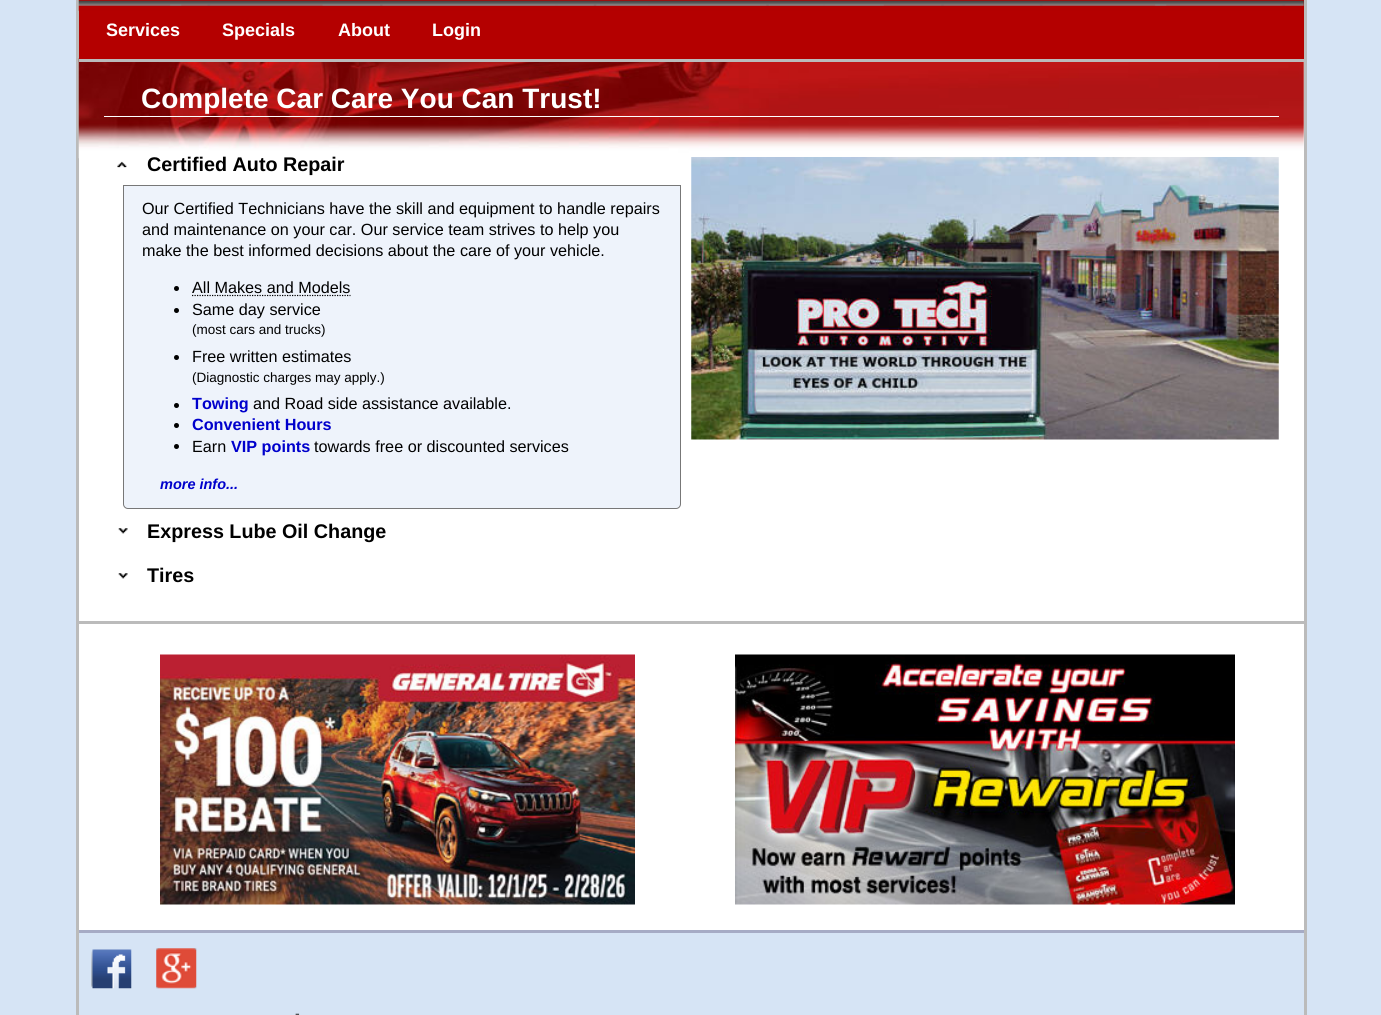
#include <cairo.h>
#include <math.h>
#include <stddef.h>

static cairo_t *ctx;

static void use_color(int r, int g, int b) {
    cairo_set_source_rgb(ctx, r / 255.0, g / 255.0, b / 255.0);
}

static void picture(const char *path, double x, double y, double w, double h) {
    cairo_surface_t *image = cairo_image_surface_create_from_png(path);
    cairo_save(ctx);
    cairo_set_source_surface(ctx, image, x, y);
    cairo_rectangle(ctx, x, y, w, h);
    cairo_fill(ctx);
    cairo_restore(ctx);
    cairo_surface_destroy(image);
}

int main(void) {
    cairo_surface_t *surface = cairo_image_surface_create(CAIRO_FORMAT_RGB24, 1381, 1015);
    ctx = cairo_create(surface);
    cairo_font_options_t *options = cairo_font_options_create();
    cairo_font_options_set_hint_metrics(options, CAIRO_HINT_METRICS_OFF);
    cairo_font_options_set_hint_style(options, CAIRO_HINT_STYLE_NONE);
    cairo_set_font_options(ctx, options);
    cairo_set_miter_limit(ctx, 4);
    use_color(214, 228, 245);
    cairo_paint(ctx);
    use_color(255, 255, 255);
    cairo_rectangle(ctx, 79, 62, 1225, 868);
    cairo_fill(ctx);
    use_color(187, 187, 187);
    cairo_rectangle(ctx, 1304, 0, 3, 1015);
    cairo_fill(ctx);
    cairo_rectangle(ctx, 76, 0, 3, 1015);
    cairo_fill(ctx);
    use_color(180, 0, 0);
    cairo_rectangle(ctx, 79, 0, 1225, 11);
    cairo_fill(ctx);
    picture("img1.png", 78, 0, 1226, 11);
    picture("img2.png", 78, 58, 1226, 101);
    cairo_rectangle(ctx, 79, 11, 1225, 48);
    cairo_fill(ctx);
    use_color(187, 187, 187);
    cairo_rectangle(ctx, 79, 59, 1225, 3);
    cairo_fill(ctx);
    cairo_select_font_face(ctx, "Liberation Sans", CAIRO_FONT_SLANT_NORMAL, CAIRO_FONT_WEIGHT_BOLD);
    cairo_set_font_size(ctx, 18);
    use_color(255, 255, 255);
    cairo_move_to(ctx, 106, 36);
    cairo_show_text(ctx, "Services");
    cairo_move_to(ctx, 222, 36);
    cairo_show_text(ctx, "Specials");
    cairo_move_to(ctx, 338, 36);
    cairo_show_text(ctx, "About");
    cairo_move_to(ctx, 432, 36);
    cairo_show_text(ctx, "Login");
    use_color(187, 187, 187);
    cairo_rectangle(ctx, 79, 621, 1225, 3);
    cairo_fill(ctx);
    use_color(255, 255, 255);
    cairo_rectangle(ctx, 104, 116, 1175, 1);
    cairo_fill(ctx);
    cairo_set_font_size(ctx, 28);
    cairo_move_to(ctx, 141, 108);
    cairo_show_text(ctx, "Complete Car Care You Can Trust!");
    picture("img3.png", 117, 161, 10, 7);
    cairo_set_font_size(ctx, 19.75);
    use_color(0, 0, 0);
    cairo_move_to(ctx, 147, 171);
    cairo_show_text(ctx, "Certified Auto Repair");
    use_color(238, 243, 251);
    cairo_new_path(ctx);
    cairo_move_to(ctx, 123.5, 185.5);
    cairo_line_to(ctx, 680.5, 185.5);
    cairo_line_to(ctx, 680.5, 504);
    cairo_curve_to(ctx, 680.5, 506.5, 678.5, 508.5, 676, 508.5);
    cairo_line_to(ctx, 128, 508.5);
    cairo_curve_to(ctx, 125.5, 508.5, 123.5, 506.5, 123.5, 504);
    cairo_close_path(ctx);
    cairo_fill_preserve(ctx);
    use_color(119, 119, 119);
    cairo_set_line_width(ctx, 1);
    cairo_stroke(ctx);
    cairo_select_font_face(ctx, "Liberation Sans", CAIRO_FONT_SLANT_NORMAL, CAIRO_FONT_WEIGHT_NORMAL);
    cairo_set_font_size(ctx, 16.2);
    use_color(0, 0, 0);
    cairo_move_to(ctx, 142, 214);
    cairo_show_text(ctx, "Our Certified Technicians have the skill and equipment to handle repairs");
    cairo_move_to(ctx, 142, 235);
    cairo_show_text(ctx, "and maintenance on your car. Our service team strives to help you");
    cairo_move_to(ctx, 142, 256);
    cairo_show_text(ctx, "make the best informed decisions about the care of your vehicle.");
    cairo_new_path(ctx);
    cairo_arc(ctx, 176.5, 288.5, 2.5, 0, 2 * M_PI);
    cairo_fill(ctx);
    cairo_move_to(ctx, 192, 293);
    cairo_show_text(ctx, "All Makes and Models");
    cairo_new_path(ctx);
    cairo_move_to(ctx, 192, 295.5);
    cairo_line_to(ctx, 350.5, 295.5);
    cairo_set_line_width(ctx, 1.2);
    cairo_set_dash(ctx, (double[]){1.25, 1.25}, 2, 0);
    cairo_stroke(ctx);
    cairo_arc(ctx, 176.5, 310.5, 2.5, 0, 2 * M_PI);
    cairo_fill(ctx);
    cairo_move_to(ctx, 192, 315);
    cairo_show_text(ctx, "Same day service");
    cairo_set_font_size(ctx, 13.5);
    cairo_move_to(ctx, 192, 334);
    cairo_show_text(ctx, "(most cars and trucks)");
    cairo_new_path(ctx);
    cairo_arc(ctx, 176.5, 357.5, 2.5, 0, 2 * M_PI);
    cairo_fill(ctx);
    cairo_set_font_size(ctx, 16.2);
    cairo_move_to(ctx, 192, 362);
    cairo_show_text(ctx, "Free written estimates");
    cairo_set_font_size(ctx, 13.5);
    cairo_move_to(ctx, 192, 382);
    cairo_show_text(ctx, "(Diagnostic charges may apply.)");
    cairo_new_path(ctx);
    cairo_arc(ctx, 176.5, 405.5, 2.5, 0, 2 * M_PI);
    cairo_fill(ctx);
    cairo_select_font_face(ctx, "Liberation Sans", CAIRO_FONT_SLANT_NORMAL, CAIRO_FONT_WEIGHT_BOLD);
    cairo_set_font_size(ctx, 16.2);
    use_color(0, 0, 204);
    cairo_move_to(ctx, 192, 409);
    cairo_show_text(ctx, "Towing");
    cairo_select_font_face(ctx, "Liberation Sans", CAIRO_FONT_SLANT_NORMAL, CAIRO_FONT_WEIGHT_NORMAL);
    use_color(0, 0, 0);
    cairo_move_to(ctx, 253, 409);
    cairo_show_text(ctx, "and Road side assistance available.");
    cairo_new_path(ctx);
    cairo_arc(ctx, 176.5, 425.5, 2.5, 0, 2 * M_PI);
    cairo_fill(ctx);
    cairo_select_font_face(ctx, "Liberation Sans", CAIRO_FONT_SLANT_NORMAL, CAIRO_FONT_WEIGHT_BOLD);
    use_color(0, 0, 204);
    cairo_move_to(ctx, 192, 430);
    cairo_show_text(ctx, "Convenient Hours");
    use_color(0, 0, 0);
    cairo_new_path(ctx);
    cairo_arc(ctx, 176.5, 446.5, 2.5, 0, 2 * M_PI);
    cairo_fill(ctx);
    cairo_select_font_face(ctx, "Liberation Sans", CAIRO_FONT_SLANT_NORMAL, CAIRO_FONT_WEIGHT_NORMAL);
    cairo_move_to(ctx, 192, 452);
    cairo_show_text(ctx, "Earn");
    cairo_select_font_face(ctx, "Liberation Sans", CAIRO_FONT_SLANT_NORMAL, CAIRO_FONT_WEIGHT_BOLD);
    use_color(0, 0, 204);
    cairo_move_to(ctx, 231, 452);
    cairo_show_text(ctx, "VIP points");
    cairo_select_font_face(ctx, "Liberation Sans", CAIRO_FONT_SLANT_NORMAL, CAIRO_FONT_WEIGHT_NORMAL);
    use_color(0, 0, 0);
    cairo_move_to(ctx, 314, 452);
    cairo_show_text(ctx, "towards free or discounted services");
    cairo_select_font_face(ctx, "Liberation Sans", CAIRO_FONT_SLANT_ITALIC, CAIRO_FONT_WEIGHT_BOLD);
    cairo_set_font_size(ctx, 14.5);
    use_color(0, 0, 204);
    cairo_move_to(ctx, 160, 489);
    cairo_show_text(ctx, "more info...");
    picture("img4.png", 118, 528, 10, 6);
    cairo_select_font_face(ctx, "Liberation Sans", CAIRO_FONT_SLANT_NORMAL, CAIRO_FONT_WEIGHT_BOLD);
    cairo_set_font_size(ctx, 19.75);
    use_color(0, 0, 0);
    cairo_move_to(ctx, 147, 538);
    cairo_show_text(ctx, "Express Lube Oil Change");
    picture("img4.png", 118, 573, 10, 6);
    cairo_move_to(ctx, 147, 582);
    cairo_show_text(ctx, "Tires");
    picture("img5.png", 691, 157, 588, 283);
    picture("img6.png", 160, 654, 475, 251);
    picture("img7.png", 735, 654, 500, 251);
    use_color(166, 171, 197);
    cairo_rectangle(ctx, 79, 930, 1225, 3);
    cairo_fill(ctx);
    picture("img8.png", 91, 949, 41, 40);
    picture("img9.png", 156, 948, 41, 41);
    cairo_select_font_face(ctx, "Liberation Sans", CAIRO_FONT_SLANT_NORMAL, CAIRO_FONT_WEIGHT_NORMAL);
    cairo_set_font_size(ctx, 14);
    use_color(51, 51, 51);
    cairo_move_to(ctx, 295, 1018);
    cairo_show_text(ctx, "-");
    cairo_surface_write_to_png(surface, "result.png");
    cairo_font_options_destroy(options);
    cairo_destroy(ctx);
    cairo_surface_destroy(surface);
    return 0;
}
